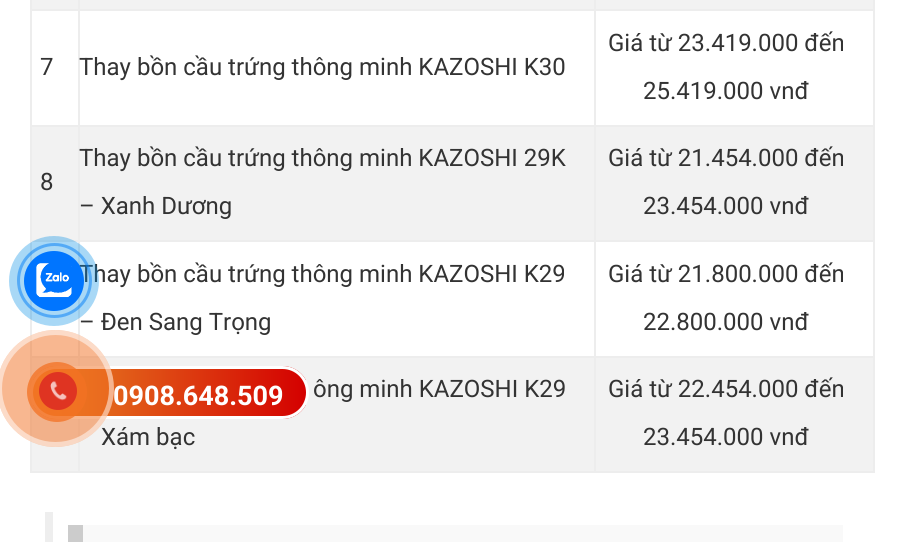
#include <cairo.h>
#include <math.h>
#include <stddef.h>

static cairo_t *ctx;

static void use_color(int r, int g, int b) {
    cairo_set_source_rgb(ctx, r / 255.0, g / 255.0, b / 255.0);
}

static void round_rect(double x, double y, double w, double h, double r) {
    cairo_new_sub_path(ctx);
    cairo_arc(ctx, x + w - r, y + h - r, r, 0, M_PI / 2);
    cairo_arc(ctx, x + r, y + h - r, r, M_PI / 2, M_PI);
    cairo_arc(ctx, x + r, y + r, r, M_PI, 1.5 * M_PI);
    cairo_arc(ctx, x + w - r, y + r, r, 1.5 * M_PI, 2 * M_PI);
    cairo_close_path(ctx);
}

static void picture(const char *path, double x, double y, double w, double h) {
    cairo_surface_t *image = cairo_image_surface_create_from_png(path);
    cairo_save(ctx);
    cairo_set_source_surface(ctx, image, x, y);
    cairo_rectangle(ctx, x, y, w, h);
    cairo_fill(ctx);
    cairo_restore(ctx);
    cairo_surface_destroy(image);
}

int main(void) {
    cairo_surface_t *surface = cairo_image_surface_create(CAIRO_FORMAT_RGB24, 902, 542);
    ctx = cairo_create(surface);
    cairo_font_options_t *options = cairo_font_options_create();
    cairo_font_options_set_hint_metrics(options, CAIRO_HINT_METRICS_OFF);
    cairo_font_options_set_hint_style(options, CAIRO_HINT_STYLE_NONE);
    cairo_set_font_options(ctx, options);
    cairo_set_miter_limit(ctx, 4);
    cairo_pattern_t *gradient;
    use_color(255, 255, 255);
    cairo_paint(ctx);
    use_color(237, 237, 237);
    cairo_rectangle(ctx, 873, 0, 2, 473);
    cairo_fill(ctx);
    cairo_rectangle(ctx, 30, 471, 845, 2);
    cairo_fill(ctx);
    cairo_rectangle(ctx, 30, 0, 2, 473);
    cairo_fill(ctx);
    use_color(242, 242, 242);
    cairo_rectangle(ctx, 32, 0, 841, 9);
    cairo_fill(ctx);
    use_color(237, 237, 237);
    cairo_rectangle(ctx, 594, 9, 281, 2);
    cairo_fill(ctx);
    cairo_rectangle(ctx, 594, 125, 281, 2);
    cairo_fill(ctx);
    use_color(242, 242, 242);
    cairo_rectangle(ctx, 32, 127, 841, 113);
    cairo_fill(ctx);
    use_color(237, 237, 237);
    cairo_rectangle(ctx, 594, 240, 281, 2);
    cairo_fill(ctx);
    cairo_rectangle(ctx, 594, 356, 281, 2);
    cairo_fill(ctx);
    use_color(242, 242, 242);
    cairo_rectangle(ctx, 32, 358, 841, 113);
    cairo_fill(ctx);
    use_color(237, 237, 237);
    cairo_rectangle(ctx, 594, 356, 2, 117);
    cairo_fill(ctx);
    cairo_rectangle(ctx, 78, 356, 518, 2);
    cairo_fill(ctx);
    cairo_rectangle(ctx, 594, 240, 2, 117);
    cairo_fill(ctx);
    cairo_rectangle(ctx, 78, 240, 518, 2);
    cairo_fill(ctx);
    cairo_rectangle(ctx, 594, 125, 2, 117);
    cairo_fill(ctx);
    cairo_rectangle(ctx, 78, 125, 518, 2);
    cairo_fill(ctx);
    cairo_rectangle(ctx, 594, 9, 2, 117);
    cairo_fill(ctx);
    cairo_rectangle(ctx, 78, 9, 518, 2);
    cairo_fill(ctx);
    cairo_rectangle(ctx, 78, 356, 2, 117);
    cairo_fill(ctx);
    cairo_rectangle(ctx, 30, 356, 50, 2);
    cairo_fill(ctx);
    cairo_rectangle(ctx, 78, 240, 2, 117);
    cairo_fill(ctx);
    cairo_rectangle(ctx, 30, 240, 50, 2);
    cairo_fill(ctx);
    cairo_rectangle(ctx, 78, 125, 2, 117);
    cairo_fill(ctx);
    cairo_rectangle(ctx, 30, 125, 50, 2);
    cairo_fill(ctx);
    cairo_rectangle(ctx, 78, 9, 2, 117);
    cairo_fill(ctx);
    cairo_rectangle(ctx, 30, 9, 50, 2);
    cairo_fill(ctx);
    cairo_rectangle(ctx, 78, 0, 2, 11);
    cairo_fill(ctx);
    cairo_rectangle(ctx, 594, 0, 2, 11);
    cairo_fill(ctx);
    cairo_select_font_face(ctx, "Roboto", CAIRO_FONT_SLANT_NORMAL, CAIRO_FONT_WEIGHT_NORMAL);
    cairo_set_font_size(ctx, 24);
    use_color(51, 51, 51);
    cairo_move_to(ctx, 40, 75);
    cairo_show_text(ctx, "7");
    cairo_move_to(ctx, 79, 75);
    cairo_show_text(ctx, "Thay bồn cầu trứng thông minh KAZOSHI K30");
    cairo_move_to(ctx, 608, 51);
    cairo_show_text(ctx, "Giá từ 23.419.000 đến");
    cairo_move_to(ctx, 643, 99);
    cairo_show_text(ctx, "25.419.000 vnđ");
    cairo_move_to(ctx, 40, 190);
    cairo_show_text(ctx, "8");
    cairo_move_to(ctx, 79, 166);
    cairo_show_text(ctx, "Thay bồn cầu trứng thông minh KAZOSHI 29K");
    cairo_move_to(ctx, 79, 214);
    cairo_show_text(ctx, "– Xanh Dương");
    cairo_move_to(ctx, 608, 166);
    cairo_show_text(ctx, "Giá từ 21.454.000 đến");
    cairo_move_to(ctx, 643, 214);
    cairo_show_text(ctx, "23.454.000 vnđ");
    cairo_move_to(ctx, 79, 282);
    cairo_show_text(ctx, "Thay bồn cầu trứng thông minh KAZOSHI K29");
    cairo_move_to(ctx, 79, 330);
    cairo_show_text(ctx, "– Đen Sang Trọng");
    cairo_move_to(ctx, 608, 282);
    cairo_show_text(ctx, "Giá từ 21.800.000 đến");
    cairo_move_to(ctx, 643, 330);
    cairo_show_text(ctx, "22.800.000 vnđ");
    cairo_move_to(ctx, 313, 397);
    cairo_show_text(ctx, "ông minh KAZOSHI K29");
    cairo_move_to(ctx, 101, 445);
    cairo_show_text(ctx, "Xám bạc");
    cairo_move_to(ctx, 608, 397);
    cairo_show_text(ctx, "Giá từ 22.454.000 đến");
    cairo_move_to(ctx, 643, 445);
    cairo_show_text(ctx, "23.454.000 vnđ");
    use_color(238, 238, 238);
    cairo_rectangle(ctx, 45, 512, 8, 30);
    cairo_fill(ctx);
    use_color(249, 249, 249);
    cairo_rectangle(ctx, 83, 525, 760, 17);
    cairo_fill(ctx);
    use_color(204, 204, 204);
    cairo_rectangle(ctx, 68, 525, 15, 17);
    cairo_fill(ctx);
    cairo_arc(ctx, 54.5, 280.5, 36, 0, 2 * M_PI);
    cairo_set_source_rgba(ctx, 0, 0.459, 1, 0.5);
    cairo_set_line_width(ctx, 3);
    cairo_stroke(ctx);
    cairo_set_source_rgba(ctx, 0, 0.561, 0.898, 0.34);
    cairo_arc(ctx, 54, 281, 45, 0, 2 * M_PI);
    cairo_fill(ctx);
    use_color(0, 117, 255);
    cairo_arc(ctx, 54, 281, 30, 0, 2 * M_PI);
    cairo_fill(ctx);
    picture("img1.png", 36, 263, 36, 35);
    cairo_save(ctx);
    round_rect(30, 366, 279, 53, 26.5);
    cairo_clip(ctx);
    gradient = cairo_pattern_create_linear(33, 392, 306, 392);
    cairo_pattern_add_color_stop_rgba(gradient, 0, 0.91, 0.541, 0.145, 1);
    cairo_pattern_add_color_stop_rgba(gradient, 1, 0.831, 0, 0, 1);
    cairo_set_source(ctx, gradient);
    cairo_pattern_destroy(gradient);
    cairo_rectangle(ctx, 33, 366, 273, 53);
    cairo_fill(ctx);
    cairo_restore(ctx);
    round_rect(31.5, 367.5, 276, 50, 25);
    use_color(255, 255, 255);
    cairo_stroke(ctx);
    cairo_select_font_face(ctx, "Roboto", CAIRO_FONT_SLANT_NORMAL, CAIRO_FONT_WEIGHT_BOLD);
    cairo_set_font_size(ctx, 27);
    cairo_move_to(ctx, 113, 405);
    cairo_show_text(ctx, "0908.648.509");
    cairo_set_source_rgba(ctx, 0.953, 0.443, 0.137, 0.5);
    cairo_new_path(ctx);
    cairo_arc(ctx, 55.5, 388.5, 58.5, 0, 2 * M_PI);
    cairo_fill(ctx);
    cairo_arc(ctx, 55.5, 388.5, 56, 0, 2 * M_PI);
    cairo_set_source_rgba(ctx, 1, 1, 1, 0.5);
    cairo_set_line_width(ctx, 5);
    cairo_stroke(ctx);
    cairo_set_source_rgba(ctx, 0.953, 0.443, 0.137, 0.75);
    cairo_arc(ctx, 57, 392, 30, 0, 2 * M_PI);
    cairo_fill(ctx);
    use_color(223, 52, 34);
    cairo_arc(ctx, 58, 391, 19, 0, 2 * M_PI);
    cairo_fill(ctx);
    picture("img2.png", 50, 381, 17, 20);
    cairo_surface_write_to_png(surface, "result.png");
    cairo_font_options_destroy(options);
    cairo_destroy(ctx);
    cairo_surface_destroy(surface);
    return 0;
}
